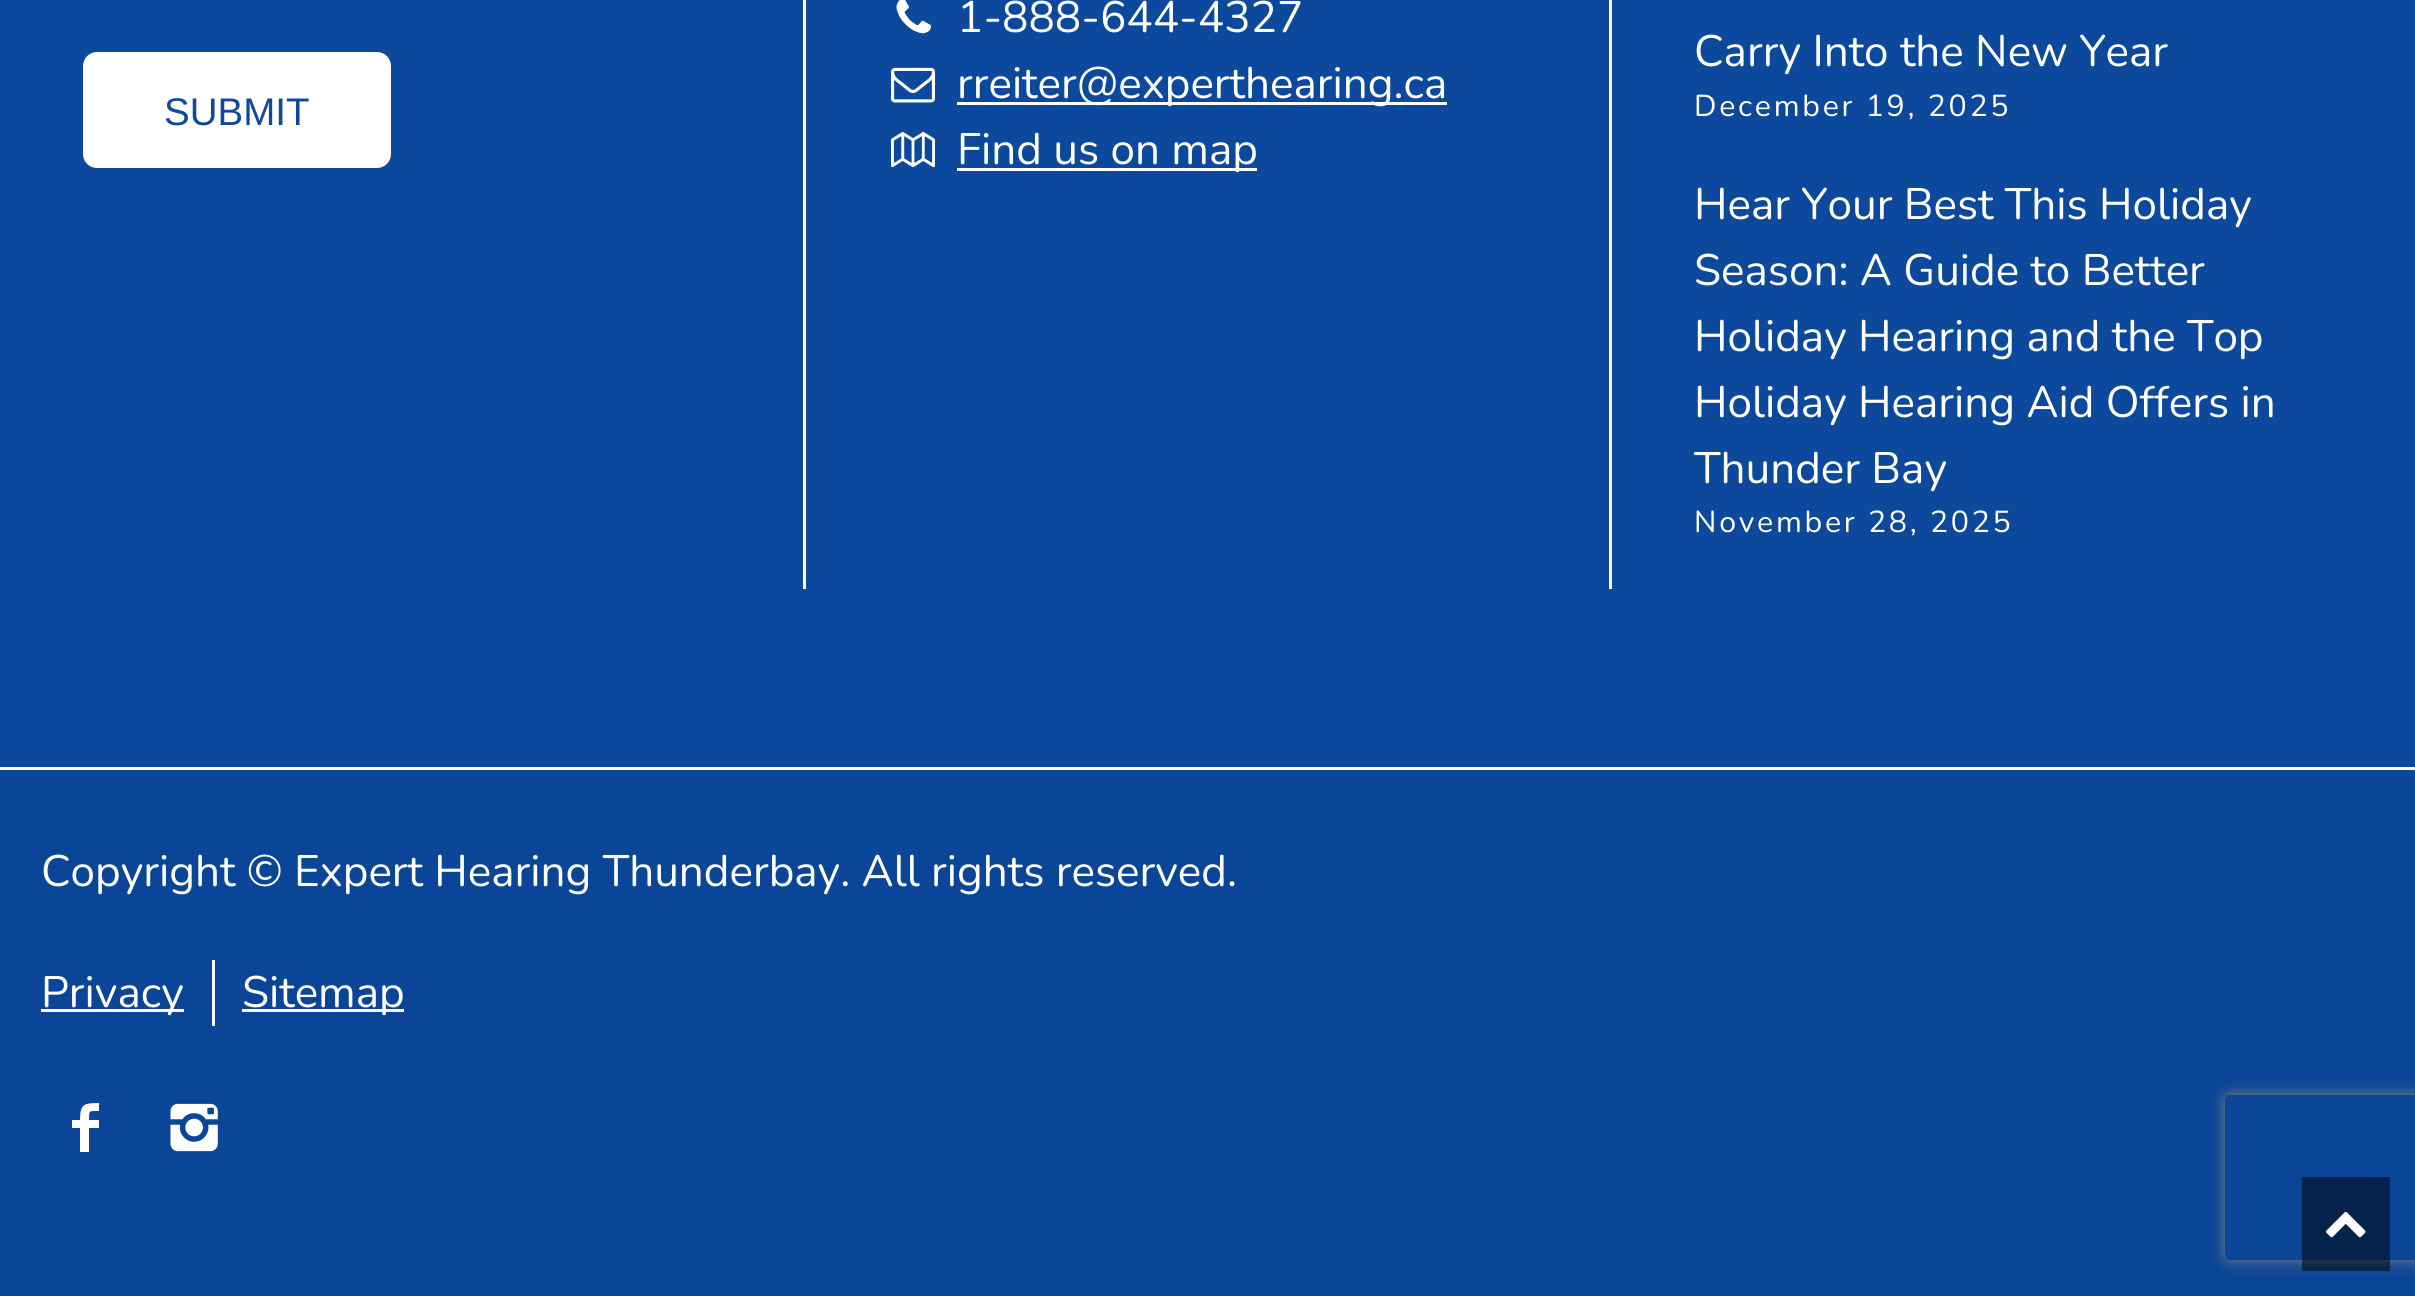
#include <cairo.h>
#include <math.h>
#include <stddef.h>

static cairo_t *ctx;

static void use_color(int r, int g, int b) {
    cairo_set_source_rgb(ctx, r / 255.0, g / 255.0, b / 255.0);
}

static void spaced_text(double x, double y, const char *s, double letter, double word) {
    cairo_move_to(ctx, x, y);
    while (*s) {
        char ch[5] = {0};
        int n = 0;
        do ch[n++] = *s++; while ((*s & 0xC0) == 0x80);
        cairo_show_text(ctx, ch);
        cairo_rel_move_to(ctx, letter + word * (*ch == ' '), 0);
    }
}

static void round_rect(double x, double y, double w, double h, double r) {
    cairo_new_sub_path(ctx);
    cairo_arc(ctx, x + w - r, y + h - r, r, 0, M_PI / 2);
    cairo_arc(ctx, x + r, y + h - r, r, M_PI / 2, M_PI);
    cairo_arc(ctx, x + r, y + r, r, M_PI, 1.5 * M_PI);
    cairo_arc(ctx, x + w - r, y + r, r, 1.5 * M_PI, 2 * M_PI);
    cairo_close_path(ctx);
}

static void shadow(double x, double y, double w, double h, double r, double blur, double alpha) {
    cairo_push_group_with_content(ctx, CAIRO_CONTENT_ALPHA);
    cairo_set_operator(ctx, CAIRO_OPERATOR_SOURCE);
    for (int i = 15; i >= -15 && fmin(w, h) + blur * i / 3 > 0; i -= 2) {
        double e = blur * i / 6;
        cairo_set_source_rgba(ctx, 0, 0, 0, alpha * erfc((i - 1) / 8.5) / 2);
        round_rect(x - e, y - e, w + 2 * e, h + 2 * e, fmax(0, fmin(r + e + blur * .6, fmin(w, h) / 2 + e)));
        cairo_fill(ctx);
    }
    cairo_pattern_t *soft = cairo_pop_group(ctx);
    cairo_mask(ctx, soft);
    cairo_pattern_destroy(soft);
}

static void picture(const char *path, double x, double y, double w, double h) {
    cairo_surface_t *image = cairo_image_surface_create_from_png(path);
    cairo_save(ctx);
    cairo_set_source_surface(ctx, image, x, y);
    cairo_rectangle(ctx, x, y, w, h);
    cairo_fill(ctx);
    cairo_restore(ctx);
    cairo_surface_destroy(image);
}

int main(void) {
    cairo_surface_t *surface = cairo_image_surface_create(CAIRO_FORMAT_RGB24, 2415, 1296);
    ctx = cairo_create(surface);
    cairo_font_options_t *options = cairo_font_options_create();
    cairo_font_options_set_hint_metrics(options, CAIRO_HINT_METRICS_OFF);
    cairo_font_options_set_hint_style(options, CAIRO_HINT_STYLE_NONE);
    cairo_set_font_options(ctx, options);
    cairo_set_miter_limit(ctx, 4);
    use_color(255, 255, 255);
    cairo_paint(ctx);
    use_color(12, 73, 156);
    cairo_rectangle(ctx, 0, 0, 2415, 767);
    cairo_fill(ctx);
    use_color(255, 255, 255);
    round_rect(83, 52, 308, 116, 14);
    cairo_fill(ctx);
    cairo_select_font_face(ctx, "Liberation Sans", CAIRO_FONT_SLANT_NORMAL, CAIRO_FONT_WEIGHT_NORMAL);
    cairo_set_font_size(ctx, 38.5);
    use_color(13, 73, 156);
    cairo_move_to(ctx, 164, 125);
    cairo_show_text(ctx, "SUBMIT");
    use_color(255, 255, 255);
    cairo_rectangle(ctx, 803, 0, 3, 589);
    cairo_fill(ctx);
    picture("img1.png", 896, 0, 36, 34);
    cairo_select_font_face(ctx, "Nunito ExtraLight", CAIRO_FONT_SLANT_NORMAL, CAIRO_FONT_WEIGHT_NORMAL);
    cairo_set_font_size(ctx, 44);
    cairo_move_to(ctx, 957, 32);
    cairo_show_text(ctx, "1-888-644-4327");
    picture("img2.png", 891, 67, 44, 36);
    cairo_rectangle(ctx, 957, 102, 490, 3);
    cairo_fill(ctx);
    cairo_move_to(ctx, 957, 98);
    cairo_show_text(ctx, "rreiter@experthearing.ca");
    picture("img3.png", 891, 132, 44, 36);
    cairo_rectangle(ctx, 957, 168, 300, 3);
    cairo_fill(ctx);
    cairo_move_to(ctx, 957, 164);
    cairo_show_text(ctx, "Find us on map");
    cairo_rectangle(ctx, 1609, 0, 3, 589);
    cairo_fill(ctx);
    cairo_move_to(ctx, 1694, 66);
    cairo_show_text(ctx, "Carry Into the New Year");
    cairo_set_font_size(ctx, 30.25);
    spaced_text(1694, 116, "December 19, 2025", 2.75, 0);
    cairo_set_font_size(ctx, 44);
    cairo_move_to(ctx, 1694, 219);
    cairo_show_text(ctx, "Hear Your Best This Holiday");
    cairo_move_to(ctx, 1694, 285);
    cairo_show_text(ctx, "Season: A Guide to Better");
    cairo_move_to(ctx, 1694, 351);
    cairo_show_text(ctx, "Holiday Hearing and the Top");
    cairo_move_to(ctx, 1694, 417);
    cairo_show_text(ctx, "Holiday Hearing Aid Offers in");
    cairo_move_to(ctx, 1694, 483);
    cairo_show_text(ctx, "Thunder Bay");
    cairo_set_font_size(ctx, 30.25);
    spaced_text(1694, 532, "November 28, 2025", 2.75, 0);
    use_color(11, 69, 151);
    cairo_rectangle(ctx, 0, 770, 2415, 526);
    cairo_fill(ctx);
    cairo_set_font_size(ctx, 44);
    use_color(255, 255, 255);
    cairo_move_to(ctx, 41, 886);
    cairo_show_text(ctx, "Copyright © Expert Hearing Thunderbay. All rights reserved.");
    cairo_rectangle(ctx, 41, 1009, 143, 3);
    cairo_fill(ctx);
    cairo_move_to(ctx, 41, 1007);
    cairo_show_text(ctx, "Privacy");
    cairo_rectangle(ctx, 212, 960, 3, 66);
    cairo_fill(ctx);
    cairo_rectangle(ctx, 242, 1009, 162, 3);
    cairo_fill(ctx);
    cairo_move_to(ctx, 242, 1007);
    cairo_show_text(ctx, "Sitemap");
    cairo_new_path(ctx);
    cairo_move_to(ctx, 99, 1111);
    cairo_curve_to(ctx, 89, 1111, 89, 1110, 89, 1120);
    cairo_line_to(ctx, 99, 1120);
    cairo_line_to(ctx, 99, 1128);
    cairo_line_to(ctx, 89, 1128);
    cairo_line_to(ctx, 89, 1152);
    cairo_line_to(ctx, 80, 1152);
    cairo_line_to(ctx, 80, 1128);
    cairo_line_to(ctx, 72, 1128);
    cairo_line_to(ctx, 72, 1120);
    cairo_line_to(ctx, 80, 1120);
    cairo_curve_to(ctx, 80, 1104, 84, 1103, 99, 1103);
    cairo_close_path(ctx);
    cairo_fill(ctx);
    picture("img4.png", 170, 1103, 48, 49);
    cairo_save(ctx);
    cairo_set_fill_rule(ctx, CAIRO_FILL_RULE_EVEN_ODD);
    cairo_new_path(ctx);
    cairo_move_to(ctx, 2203, 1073);
    cairo_line_to(ctx, 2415, 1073);
    cairo_line_to(ctx, 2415, 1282);
    cairo_line_to(ctx, 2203, 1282);
    cairo_close_path(ctx);
    cairo_move_to(ctx, 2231, 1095);
    cairo_line_to(ctx, 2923, 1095);
    cairo_curve_to(ctx, 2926.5, 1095, 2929, 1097.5, 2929, 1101);
    cairo_line_to(ctx, 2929, 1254);
    cairo_curve_to(ctx, 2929, 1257.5, 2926.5, 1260, 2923, 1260);
    cairo_line_to(ctx, 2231, 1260);
    cairo_curve_to(ctx, 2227.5, 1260, 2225, 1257.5, 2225, 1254);
    cairo_line_to(ctx, 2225, 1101);
    cairo_curve_to(ctx, 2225, 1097.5, 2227.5, 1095, 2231, 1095);
    cairo_close_path(ctx);
    cairo_clip(ctx);
    use_color(128, 128, 128);
    shadow(2225, 1095, 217, 165, 6, 7, 1);
    cairo_restore(ctx);
    cairo_set_source_rgba(ctx, 0, 0, 0, 0.5);
    cairo_rectangle(ctx, 2302, 1177, 88, 94);
    cairo_fill(ctx);
    picture("img5.png", 2326, 1211, 40, 27);
    cairo_surface_write_to_png(surface, "result.png");
    cairo_font_options_destroy(options);
    cairo_destroy(ctx);
    cairo_surface_destroy(surface);
    return 0;
}
